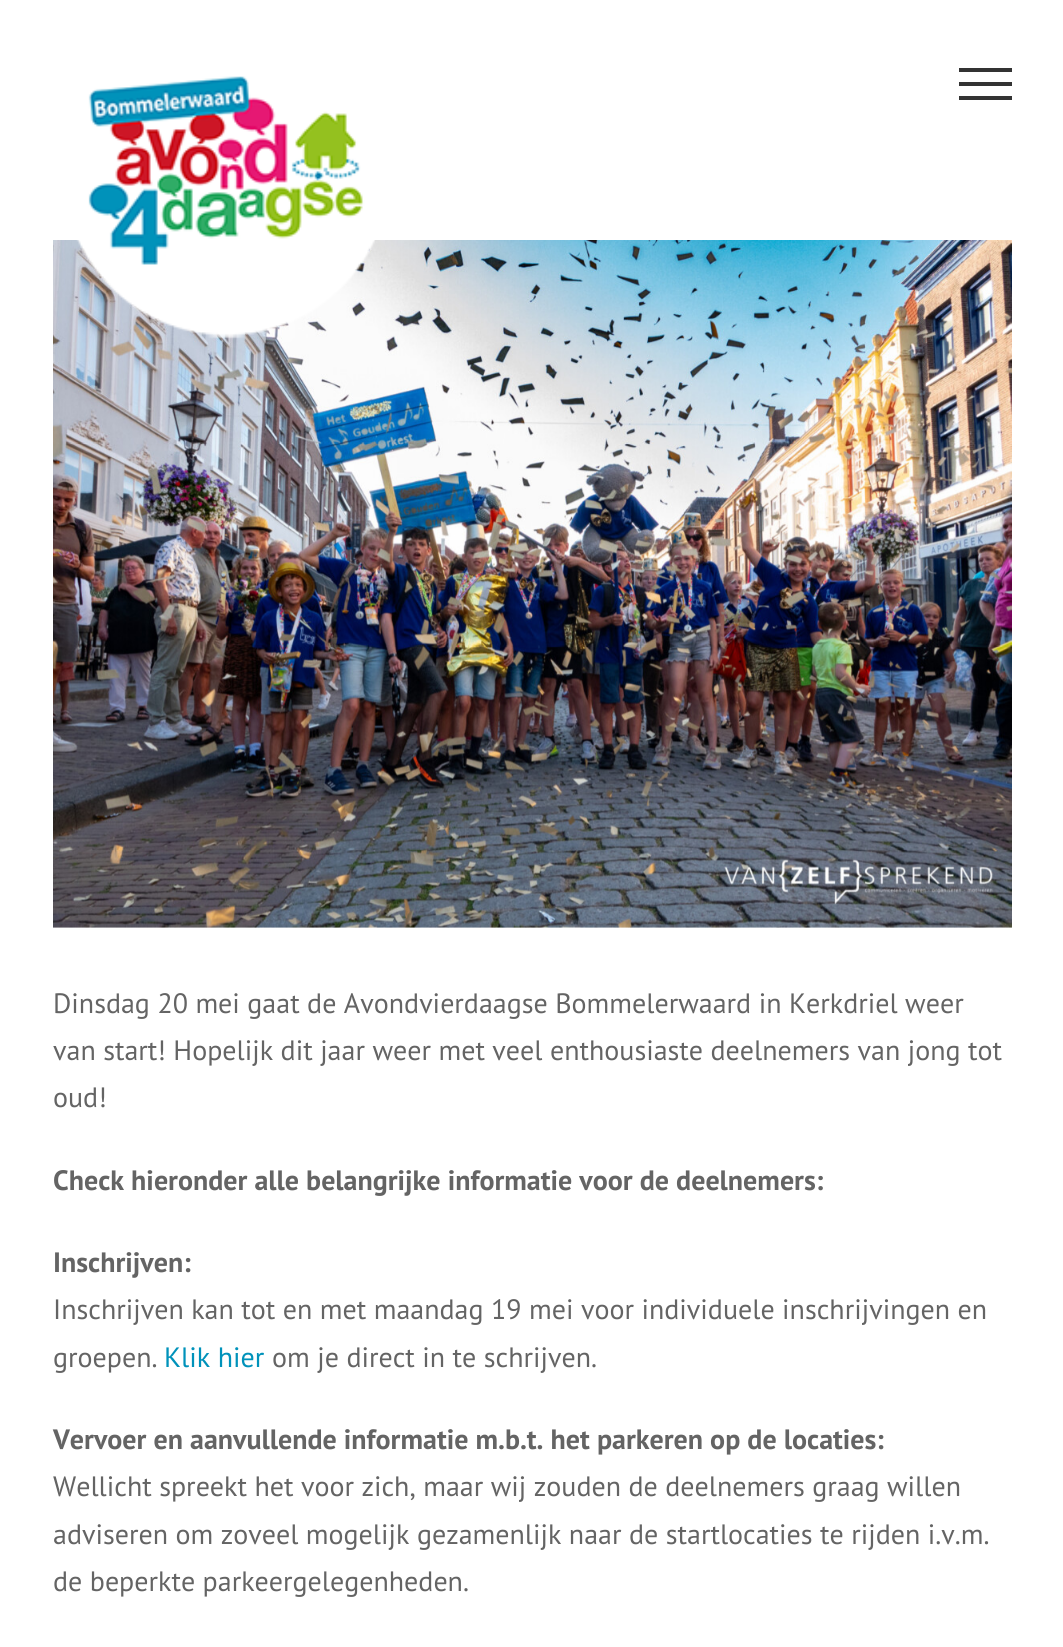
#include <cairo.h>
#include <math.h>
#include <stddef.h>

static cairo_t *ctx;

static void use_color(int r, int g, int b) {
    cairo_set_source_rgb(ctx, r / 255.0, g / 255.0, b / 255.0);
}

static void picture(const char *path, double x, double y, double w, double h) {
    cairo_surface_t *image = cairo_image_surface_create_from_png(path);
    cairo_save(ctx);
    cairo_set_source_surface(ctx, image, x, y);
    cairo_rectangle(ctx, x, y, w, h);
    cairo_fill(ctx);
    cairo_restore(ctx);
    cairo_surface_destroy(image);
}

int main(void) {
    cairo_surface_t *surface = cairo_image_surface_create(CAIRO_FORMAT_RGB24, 1063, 1647);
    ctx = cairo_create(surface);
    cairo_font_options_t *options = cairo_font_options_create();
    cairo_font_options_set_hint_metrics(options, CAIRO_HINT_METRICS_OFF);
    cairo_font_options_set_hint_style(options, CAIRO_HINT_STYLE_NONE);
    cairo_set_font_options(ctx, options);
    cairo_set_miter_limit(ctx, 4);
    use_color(255, 255, 255);
    cairo_paint(ctx);
    picture("img2.png", 53, 240, 959, 688);
    picture("img1.png", 76, 76, 299, 263);
    use_color(51, 51, 51);
    cairo_rectangle(ctx, 959, 68, 53, 4);
    cairo_fill(ctx);
    cairo_rectangle(ctx, 959, 82, 53, 4);
    cairo_fill(ctx);
    cairo_rectangle(ctx, 959, 96, 53, 4);
    cairo_fill(ctx);
    cairo_select_font_face(ctx, "PT Sans", CAIRO_FONT_SLANT_NORMAL, CAIRO_FONT_WEIGHT_NORMAL);
    cairo_set_font_size(ctx, 28);
    use_color(100, 100, 100);
    cairo_move_to(ctx, 53, 1013);
    cairo_show_text(ctx, "Dinsdag 20 mei gaat de Avondvierdaagse Bommelerwaard in Kerkdriel weer");
    cairo_move_to(ctx, 53, 1060);
    cairo_show_text(ctx, "van start! Hopelijk dit jaar weer met veel enthousiaste deelnemers van jong tot");
    cairo_move_to(ctx, 53, 1107);
    cairo_show_text(ctx, "oud!");
    cairo_select_font_face(ctx, "PT Sans", CAIRO_FONT_SLANT_NORMAL, CAIRO_FONT_WEIGHT_BOLD);
    cairo_move_to(ctx, 53, 1190);
    cairo_show_text(ctx, "Check hieronder alle belangrijke informatie voor de deelnemers:");
    cairo_move_to(ctx, 53, 1272);
    cairo_show_text(ctx, "Inschrijven:");
    cairo_select_font_face(ctx, "PT Sans", CAIRO_FONT_SLANT_NORMAL, CAIRO_FONT_WEIGHT_NORMAL);
    cairo_move_to(ctx, 53, 1319);
    cairo_show_text(ctx, "Inschrijven kan tot en met maandag 19 mei voor individuele inschrijvingen en");
    cairo_move_to(ctx, 53, 1367);
    cairo_show_text(ctx, "groepen.");
    use_color(0, 146, 186);
    cairo_move_to(ctx, 164, 1367);
    cairo_show_text(ctx, "Klik hier");
    use_color(100, 100, 100);
    cairo_move_to(ctx, 272, 1367);
    cairo_show_text(ctx, "om je direct in te schrijven.");
    cairo_select_font_face(ctx, "PT Sans", CAIRO_FONT_SLANT_NORMAL, CAIRO_FONT_WEIGHT_BOLD);
    cairo_move_to(ctx, 53, 1449);
    cairo_show_text(ctx, "Vervoer en aanvullende informatie m.b.t. het parkeren op de locaties:");
    cairo_select_font_face(ctx, "PT Sans", CAIRO_FONT_SLANT_NORMAL, CAIRO_FONT_WEIGHT_NORMAL);
    cairo_move_to(ctx, 53, 1496);
    cairo_show_text(ctx, "Wellicht spreekt het voor zich, maar wij zouden de deelnemers graag willen");
    cairo_move_to(ctx, 53, 1544);
    cairo_show_text(ctx, "adviseren om zoveel mogelijk gezamenlijk naar de startlocaties te rijden i.v.m.");
    cairo_move_to(ctx, 53, 1591);
    cairo_show_text(ctx, "de beperkte parkeergelegenheden.");
    cairo_surface_write_to_png(surface, "result.png");
    cairo_font_options_destroy(options);
    cairo_destroy(ctx);
    cairo_surface_destroy(surface);
    return 0;
}
